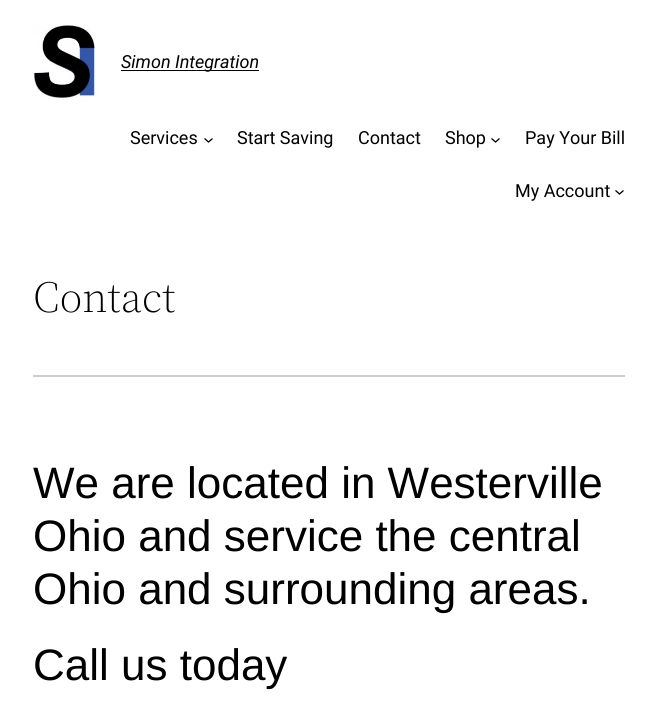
#include <cairo.h>
#include <math.h>
#include <stddef.h>

static cairo_t *ctx;

static void use_color(int r, int g, int b) {
    cairo_set_source_rgb(ctx, r / 255.0, g / 255.0, b / 255.0);
}

static void picture(const char *path, double x, double y, double w, double h) {
    cairo_surface_t *image = cairo_image_surface_create_from_png(path);
    cairo_save(ctx);
    cairo_set_source_surface(ctx, image, x, y);
    cairo_rectangle(ctx, x, y, w, h);
    cairo_fill(ctx);
    cairo_restore(ctx);
    cairo_surface_destroy(image);
}

int main(void) {
    cairo_surface_t *surface = cairo_image_surface_create(CAIRO_FORMAT_RGB24, 658, 721);
    ctx = cairo_create(surface);
    cairo_font_options_t *options = cairo_font_options_create();
    cairo_font_options_set_hint_metrics(options, CAIRO_HINT_METRICS_OFF);
    cairo_font_options_set_hint_style(options, CAIRO_HINT_STYLE_NONE);
    cairo_set_font_options(ctx, options);
    cairo_set_miter_limit(ctx, 4);
    use_color(255, 255, 255);
    cairo_paint(ctx);
    picture("img1.png", 33, 25, 64, 73);
    use_color(0, 0, 0);
    cairo_rectangle(ctx, 121, 70, 138, 1);
    cairo_fill(ctx);
    cairo_select_font_face(ctx, "Roboto", CAIRO_FONT_SLANT_ITALIC, CAIRO_FONT_WEIGHT_NORMAL);
    cairo_set_font_size(ctx, 18);
    cairo_move_to(ctx, 121, 68);
    cairo_show_text(ctx, "Simon Integration");
    cairo_select_font_face(ctx, "Roboto", CAIRO_FONT_SLANT_NORMAL, CAIRO_FONT_WEIGHT_NORMAL);
    cairo_move_to(ctx, 130, 144);
    cairo_show_text(ctx, "Services");
    cairo_new_path(ctx);
    cairo_move_to(ctx, 204.5, 138.5);
    cairo_line_to(ctx, 208.5, 142);
    cairo_line_to(ctx, 212.5, 138.5);
    cairo_set_line_width(ctx, 1.3);
    cairo_stroke(ctx);
    cairo_move_to(ctx, 237, 144);
    cairo_show_text(ctx, "Start Saving");
    cairo_move_to(ctx, 358, 144);
    cairo_show_text(ctx, "Contact");
    cairo_move_to(ctx, 445, 144);
    cairo_show_text(ctx, "Shop");
    cairo_new_path(ctx);
    cairo_move_to(ctx, 491.5, 138.5);
    cairo_line_to(ctx, 495.5, 142);
    cairo_line_to(ctx, 499.5, 138.5);
    cairo_stroke(ctx);
    cairo_move_to(ctx, 525, 144);
    cairo_show_text(ctx, "Pay Your Bill");
    cairo_move_to(ctx, 515, 197);
    cairo_show_text(ctx, "My Account");
    cairo_new_path(ctx);
    cairo_move_to(ctx, 615.5, 190.5);
    cairo_line_to(ctx, 619.5, 194);
    cairo_line_to(ctx, 623.5, 190.5);
    cairo_stroke(ctx);
    cairo_select_font_face(ctx, "Source Serif 4 Light", CAIRO_FONT_SLANT_NORMAL, CAIRO_FONT_WEIGHT_NORMAL);
    cairo_set_font_size(ctx, 44);
    cairo_move_to(ctx, 33, 312);
    cairo_show_text(ctx, "Contact");
    use_color(204, 204, 204);
    cairo_rectangle(ctx, 33, 375, 592, 2);
    cairo_fill(ctx);
    cairo_select_font_face(ctx, "Liberation Sans", CAIRO_FONT_SLANT_NORMAL, CAIRO_FONT_WEIGHT_NORMAL);
    use_color(0, 0, 0);
    cairo_move_to(ctx, 33, 498);
    cairo_show_text(ctx, "We are located in Westerville");
    cairo_move_to(ctx, 33, 551);
    cairo_show_text(ctx, "Ohio and service the central");
    cairo_move_to(ctx, 33, 604);
    cairo_show_text(ctx, "Ohio and surrounding areas.");
    cairo_move_to(ctx, 33, 680);
    cairo_show_text(ctx, "Call us today");
    cairo_surface_write_to_png(surface, "result.png");
    cairo_font_options_destroy(options);
    cairo_destroy(ctx);
    cairo_surface_destroy(surface);
    return 0;
}
